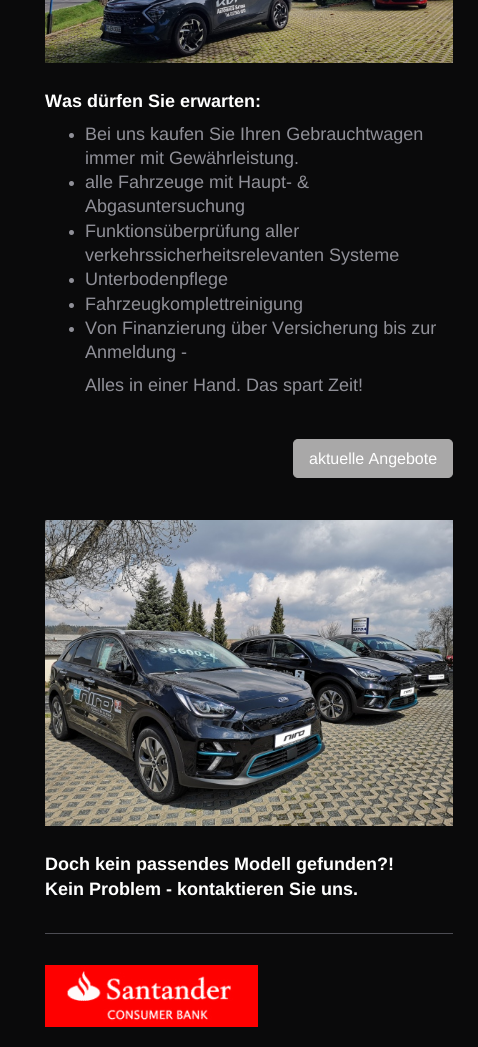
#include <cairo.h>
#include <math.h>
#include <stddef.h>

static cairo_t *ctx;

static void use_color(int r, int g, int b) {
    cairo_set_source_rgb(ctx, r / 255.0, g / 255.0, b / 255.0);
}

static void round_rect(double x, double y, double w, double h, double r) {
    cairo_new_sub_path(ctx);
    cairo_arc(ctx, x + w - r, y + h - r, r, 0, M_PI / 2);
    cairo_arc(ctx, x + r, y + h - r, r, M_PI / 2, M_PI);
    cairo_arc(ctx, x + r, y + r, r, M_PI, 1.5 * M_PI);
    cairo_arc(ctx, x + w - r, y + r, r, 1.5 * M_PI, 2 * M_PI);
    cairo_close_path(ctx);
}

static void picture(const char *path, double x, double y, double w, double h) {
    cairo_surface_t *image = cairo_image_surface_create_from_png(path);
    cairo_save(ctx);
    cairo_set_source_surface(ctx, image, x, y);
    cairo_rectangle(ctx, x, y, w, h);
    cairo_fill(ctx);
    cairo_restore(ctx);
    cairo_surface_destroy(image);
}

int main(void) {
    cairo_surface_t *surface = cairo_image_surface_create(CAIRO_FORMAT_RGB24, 478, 1047);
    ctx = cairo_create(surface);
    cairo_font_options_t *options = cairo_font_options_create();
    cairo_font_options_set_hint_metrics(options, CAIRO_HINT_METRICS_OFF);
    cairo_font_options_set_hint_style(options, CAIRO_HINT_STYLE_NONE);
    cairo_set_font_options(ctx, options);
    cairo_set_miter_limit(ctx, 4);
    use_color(10, 10, 11);
    cairo_paint(ctx);
    picture("img1.png", 45, 0, 408, 63);
    cairo_select_font_face(ctx, "Liberation Sans", CAIRO_FONT_SLANT_NORMAL, CAIRO_FONT_WEIGHT_BOLD);
    cairo_set_font_size(ctx, 18);
    use_color(255, 255, 255);
    cairo_move_to(ctx, 45, 107);
    cairo_show_text(ctx, "Was dürfen Sie erwarten:");
    use_color(144, 144, 152);
    cairo_new_path(ctx);
    cairo_arc(ctx, 71.5, 135.5, 2.5, 0, 2 * M_PI);
    cairo_fill(ctx);
    cairo_select_font_face(ctx, "Liberation Sans", CAIRO_FONT_SLANT_NORMAL, CAIRO_FONT_WEIGHT_NORMAL);
    cairo_move_to(ctx, 85, 140);
    cairo_show_text(ctx, "Bei uns kaufen Sie Ihren Gebrauchtwagen");
    cairo_move_to(ctx, 85, 164);
    cairo_show_text(ctx, "immer mit Gewährleistung.");
    cairo_new_path(ctx);
    cairo_arc(ctx, 71.5, 183.5, 2.5, 0, 2 * M_PI);
    cairo_fill(ctx);
    cairo_move_to(ctx, 85, 188);
    cairo_show_text(ctx, "alle Fahrzeuge mit Haupt- &");
    cairo_move_to(ctx, 85, 212);
    cairo_show_text(ctx, "Abgasuntersuchung");
    cairo_new_path(ctx);
    cairo_arc(ctx, 71.5, 232.5, 2.5, 0, 2 * M_PI);
    cairo_fill(ctx);
    cairo_move_to(ctx, 85, 237);
    cairo_show_text(ctx, "Funktionsüberprüfung aller");
    cairo_move_to(ctx, 85, 261);
    cairo_show_text(ctx, "verkehrssicherheitsrelevanten Systeme");
    cairo_new_path(ctx);
    cairo_arc(ctx, 71.5, 280.5, 2.5, 0, 2 * M_PI);
    cairo_fill(ctx);
    cairo_move_to(ctx, 85, 285);
    cairo_show_text(ctx, "Unterbodenpflege");
    cairo_new_path(ctx);
    cairo_arc(ctx, 71.5, 305.5, 2.5, 0, 2 * M_PI);
    cairo_fill(ctx);
    cairo_move_to(ctx, 85, 310);
    cairo_show_text(ctx, "Fahrzeugkomplettreinigung");
    cairo_new_path(ctx);
    cairo_arc(ctx, 71.5, 329.5, 2.5, 0, 2 * M_PI);
    cairo_fill(ctx);
    cairo_move_to(ctx, 85, 334);
    cairo_show_text(ctx, "Von Finanzierung über Versicherung bis zur");
    cairo_move_to(ctx, 85, 358);
    cairo_show_text(ctx, "Anmeldung -");
    cairo_move_to(ctx, 85, 391);
    cairo_show_text(ctx, "Alles in einer Hand. Das spart Zeit!");
    use_color(169, 168, 168);
    round_rect(293.5, 439.5, 159, 38, 4.5);
    cairo_fill_preserve(ctx);
    cairo_set_line_width(ctx, 1);
    cairo_stroke(ctx);
    cairo_set_font_size(ctx, 16);
    use_color(255, 255, 255);
    cairo_move_to(ctx, 309, 464);
    cairo_show_text(ctx, "aktuelle Angebote");
    picture("img2.png", 45, 520, 408, 306);
    cairo_select_font_face(ctx, "Liberation Sans", CAIRO_FONT_SLANT_NORMAL, CAIRO_FONT_WEIGHT_BOLD);
    cairo_set_font_size(ctx, 18);
    cairo_move_to(ctx, 45, 870);
    cairo_show_text(ctx, "Doch kein passendes Modell gefunden?!");
    cairo_move_to(ctx, 45, 895);
    cairo_show_text(ctx, "Kein Problem - kontaktieren Sie uns.");
    use_color(76, 76, 83);
    cairo_rectangle(ctx, 45, 933, 408, 1);
    cairo_fill(ctx);
    picture("img3.png", 45, 965, 213, 62);
    cairo_surface_write_to_png(surface, "result.png");
    cairo_font_options_destroy(options);
    cairo_destroy(ctx);
    cairo_surface_destroy(surface);
    return 0;
}
